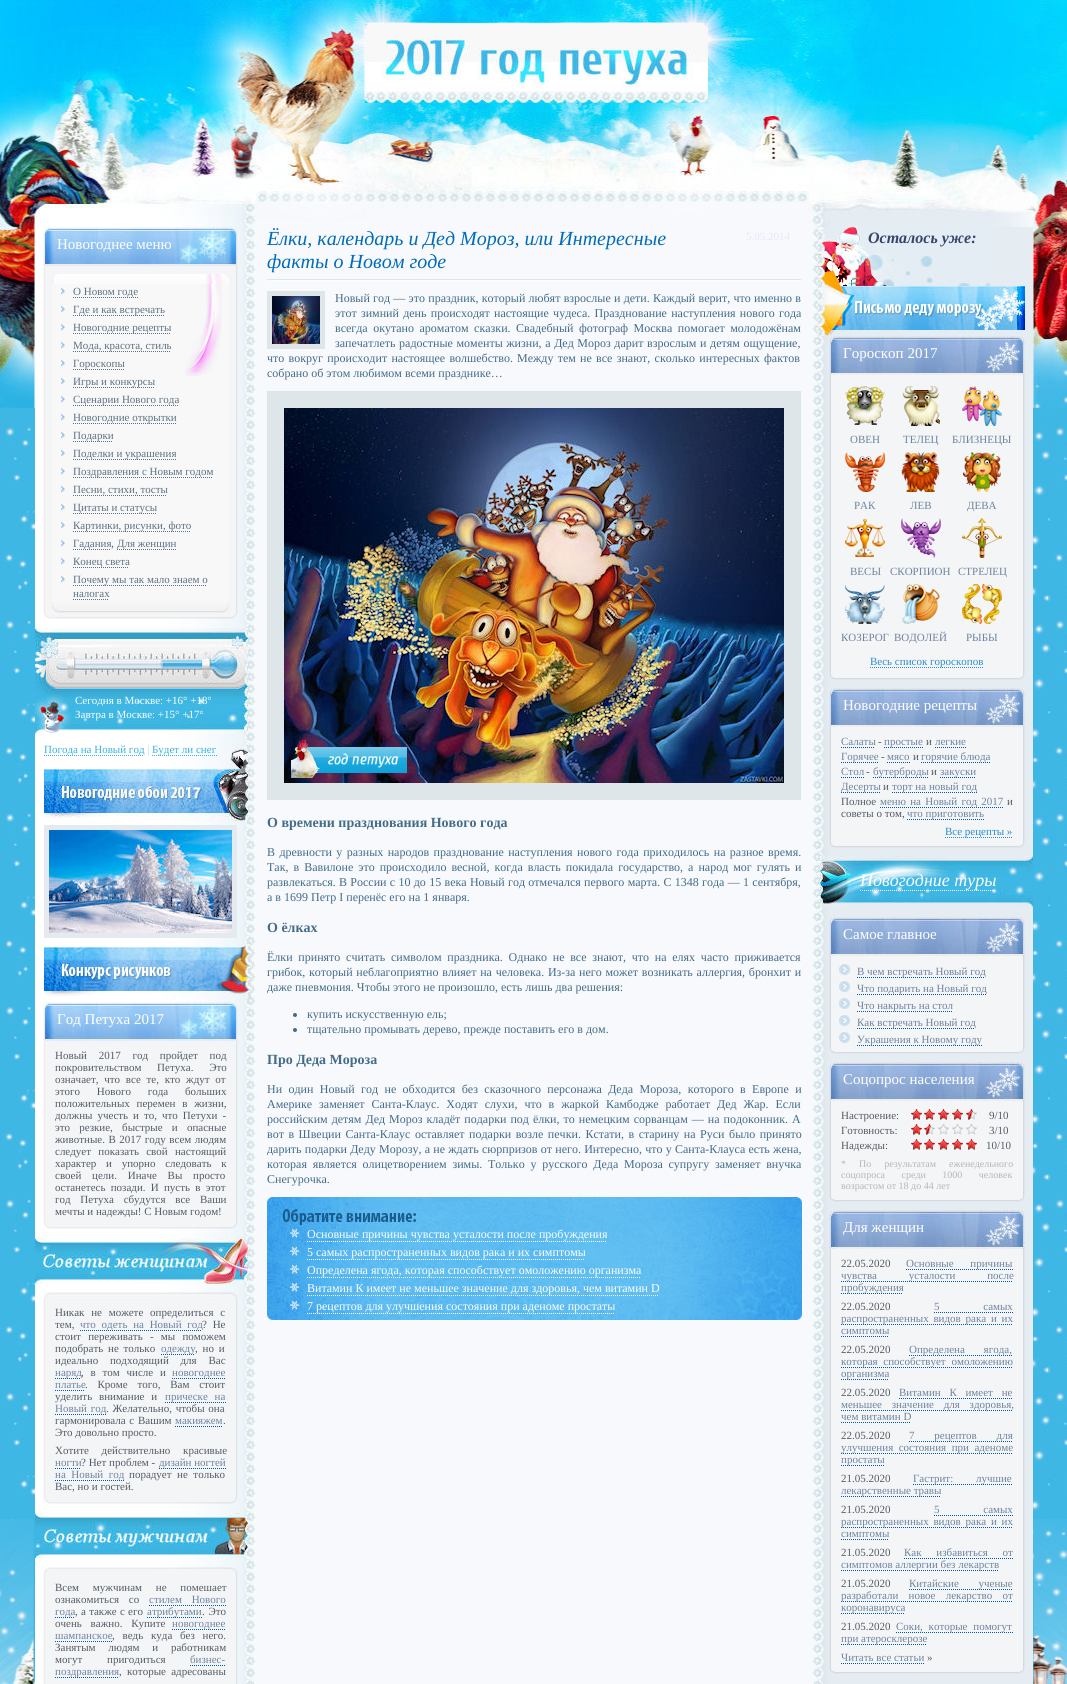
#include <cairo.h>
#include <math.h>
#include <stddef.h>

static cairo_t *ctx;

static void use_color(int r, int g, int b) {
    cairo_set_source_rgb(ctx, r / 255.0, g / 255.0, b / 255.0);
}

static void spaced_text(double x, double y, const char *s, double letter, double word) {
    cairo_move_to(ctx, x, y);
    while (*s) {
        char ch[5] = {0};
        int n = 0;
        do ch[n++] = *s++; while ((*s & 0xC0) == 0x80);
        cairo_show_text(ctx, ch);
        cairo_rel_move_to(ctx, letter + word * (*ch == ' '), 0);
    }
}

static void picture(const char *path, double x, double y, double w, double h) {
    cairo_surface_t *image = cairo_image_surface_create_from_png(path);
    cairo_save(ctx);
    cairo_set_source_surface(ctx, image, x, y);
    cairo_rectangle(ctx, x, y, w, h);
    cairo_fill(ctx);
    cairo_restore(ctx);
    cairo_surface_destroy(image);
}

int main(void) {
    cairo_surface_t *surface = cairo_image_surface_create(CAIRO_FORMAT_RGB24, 1067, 1684);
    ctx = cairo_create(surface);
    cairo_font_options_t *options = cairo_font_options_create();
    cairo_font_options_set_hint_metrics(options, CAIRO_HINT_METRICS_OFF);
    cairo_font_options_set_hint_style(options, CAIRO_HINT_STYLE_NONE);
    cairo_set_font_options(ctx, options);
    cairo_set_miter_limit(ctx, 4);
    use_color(255, 255, 255);
    cairo_paint(ctx);
    picture("img1.png", 0, 408, 1067, 1276);
    picture("img2.png", 0, 0, 1067, 408);
    picture("img3.png", 365, 24, 343, 79);
    picture("img59.png", 0, 1519, 1067, 165);
    picture("img4.png", 35, 227, 998, 1457);
    picture("img5.png", 43, 227, 195, 39);
    cairo_select_font_face(ctx, "Liberation Serif", CAIRO_FONT_SLANT_NORMAL, CAIRO_FONT_WEIGHT_NORMAL);
    cairo_set_font_size(ctx, 15);
    use_color(255, 255, 255);
    cairo_move_to(ctx, 57, 249);
    cairo_show_text(ctx, "Новогоднее меню");
    picture("img6.png", 43, 266, 195, 347);
    picture("img7.png", 52, 274, 177, 10);
    use_color(248, 248, 248);
    cairo_rectangle(ctx, 52, 284, 177, 318);
    cairo_fill(ctx);
    picture("img8.png", 185, 284, 37, 92);
    picture("img9.png", 61, 287, 5, 8);
    cairo_new_path(ctx);
    cairo_move_to(ctx, 73, 297.5);
    cairo_line_to(ctx, 138, 297.5);
    use_color(94, 113, 132);
    cairo_set_line_width(ctx, 1);
    cairo_set_dash(ctx, (double[]){1, 1}, 2, 0);
    cairo_stroke(ctx);
    cairo_set_font_size(ctx, 11);
    cairo_move_to(ctx, 73, 295);
    cairo_show_text(ctx, "О Новом годе");
    picture("img9.png", 61, 305, 5, 8);
    cairo_new_path(ctx);
    cairo_move_to(ctx, 73, 315.5);
    cairo_line_to(ctx, 165, 315.5);
    cairo_stroke(ctx);
    cairo_move_to(ctx, 73, 313);
    cairo_show_text(ctx, "Где и как встречать");
    picture("img9.png", 61, 323, 5, 8);
    cairo_new_path(ctx);
    cairo_move_to(ctx, 73, 333.5);
    cairo_line_to(ctx, 171, 333.5);
    cairo_stroke(ctx);
    cairo_move_to(ctx, 73, 331);
    cairo_show_text(ctx, "Новогодние рецепты");
    picture("img9.png", 61, 341, 5, 8);
    cairo_new_path(ctx);
    cairo_move_to(ctx, 73, 351.5);
    cairo_line_to(ctx, 171, 351.5);
    cairo_stroke(ctx);
    cairo_move_to(ctx, 73, 349);
    cairo_show_text(ctx, "Мода, красота, стиль");
    picture("img9.png", 61, 359, 5, 8);
    cairo_new_path(ctx);
    cairo_move_to(ctx, 73, 369.5);
    cairo_line_to(ctx, 124, 369.5);
    cairo_stroke(ctx);
    cairo_move_to(ctx, 73, 367);
    cairo_show_text(ctx, "Гороскопы");
    picture("img9.png", 61, 377, 5, 8);
    cairo_new_path(ctx);
    cairo_move_to(ctx, 73, 387.5);
    cairo_line_to(ctx, 155, 387.5);
    cairo_stroke(ctx);
    cairo_move_to(ctx, 73, 385);
    cairo_show_text(ctx, "Игры и конкурсы");
    picture("img9.png", 61, 395, 5, 8);
    cairo_new_path(ctx);
    cairo_move_to(ctx, 73, 405.5);
    cairo_line_to(ctx, 179, 405.5);
    cairo_stroke(ctx);
    cairo_move_to(ctx, 73, 403);
    cairo_show_text(ctx, "Сценарии Нового года");
    picture("img9.png", 61, 413, 5, 8);
    cairo_new_path(ctx);
    cairo_move_to(ctx, 73, 423.5);
    cairo_line_to(ctx, 176, 423.5);
    cairo_stroke(ctx);
    cairo_move_to(ctx, 73, 421);
    cairo_show_text(ctx, "Новогодние открытки");
    picture("img9.png", 61, 431, 5, 8);
    cairo_new_path(ctx);
    cairo_move_to(ctx, 73, 441.5);
    cairo_line_to(ctx, 113, 441.5);
    cairo_stroke(ctx);
    cairo_move_to(ctx, 73, 439);
    cairo_show_text(ctx, "Подарки");
    picture("img9.png", 61, 449, 5, 8);
    cairo_new_path(ctx);
    cairo_move_to(ctx, 73, 459.5);
    cairo_line_to(ctx, 176, 459.5);
    cairo_stroke(ctx);
    cairo_move_to(ctx, 73, 457);
    cairo_show_text(ctx, "Поделки и украшения");
    picture("img9.png", 61, 467, 5, 8);
    cairo_new_path(ctx);
    cairo_move_to(ctx, 73, 477.5);
    cairo_line_to(ctx, 213, 477.5);
    cairo_stroke(ctx);
    cairo_move_to(ctx, 73, 475);
    cairo_show_text(ctx, "Поздравления с Новым годом");
    picture("img9.png", 61, 485, 5, 8);
    cairo_move_to(ctx, 73, 493);
    cairo_show_text(ctx, "Песни, стихи, тосты");
    cairo_new_path(ctx);
    cairo_move_to(ctx, 73, 495.5);
    cairo_line_to(ctx, 167, 495.5);
    cairo_stroke(ctx);
    picture("img9.png", 61, 503, 5, 8);
    cairo_new_path(ctx);
    cairo_move_to(ctx, 73, 513.5);
    cairo_line_to(ctx, 157, 513.5);
    cairo_stroke(ctx);
    cairo_move_to(ctx, 73, 511);
    cairo_show_text(ctx, "Цитаты и статусы");
    picture("img9.png", 61, 521, 5, 8);
    cairo_new_path(ctx);
    cairo_move_to(ctx, 73, 531.5);
    cairo_line_to(ctx, 191, 531.5);
    cairo_stroke(ctx);
    cairo_move_to(ctx, 73, 529);
    cairo_show_text(ctx, "Картинки, рисунки, фото");
    picture("img9.png", 61, 539, 5, 8);
    cairo_new_path(ctx);
    cairo_move_to(ctx, 73, 549.5);
    cairo_line_to(ctx, 111, 549.5);
    cairo_stroke(ctx);
    cairo_move_to(ctx, 73, 547);
    cairo_show_text(ctx, "Гадания");
    cairo_set_font_size(ctx, 12);
    use_color(66, 108, 136);
    cairo_move_to(ctx, 111, 547);
    cairo_show_text(ctx, ",");
    cairo_new_path(ctx);
    cairo_move_to(ctx, 117, 549.5);
    cairo_line_to(ctx, 176, 549.5);
    use_color(94, 113, 132);
    cairo_stroke(ctx);
    cairo_set_font_size(ctx, 11);
    cairo_move_to(ctx, 117, 547);
    cairo_show_text(ctx, "Для женщин");
    picture("img9.png", 61, 557, 5, 8);
    cairo_new_path(ctx);
    cairo_move_to(ctx, 73, 567.5);
    cairo_line_to(ctx, 129, 567.5);
    cairo_stroke(ctx);
    cairo_move_to(ctx, 73, 565);
    cairo_show_text(ctx, "Конец света");
    picture("img9.png", 61, 575, 5, 8);
    cairo_new_path(ctx);
    cairo_move_to(ctx, 73, 585.5);
    cairo_line_to(ctx, 207, 585.5);
    cairo_stroke(ctx);
    cairo_move_to(ctx, 73, 583);
    cairo_show_text(ctx, "Почему мы так мало знаем о");
    cairo_move_to(ctx, 73, 597);
    cairo_show_text(ctx, "налогах");
    cairo_new_path(ctx);
    cairo_move_to(ctx, 73, 599.5);
    cairo_line_to(ctx, 109, 599.5);
    cairo_stroke(ctx);
    picture("img10.png", 52, 602, 177, 11);
    picture("img11.png", 44, 613, 194, 6);
    picture("img12.png", 35, 628, 213, 106);
    use_color(255, 255, 255);
    cairo_move_to(ctx, 75, 704);
    cairo_show_text(ctx, "Сегодня в Москве: +16° +18°");
    cairo_move_to(ctx, 75, 718);
    cairo_show_text(ctx, "Завтра в Москве: +15° +17°");
    picture("img13.png", 225, 742, 23, 27);
    cairo_new_path(ctx);
    cairo_move_to(ctx, 44, 755.5);
    cairo_line_to(ctx, 144, 755.5);
    use_color(57, 178, 225);
    cairo_stroke(ctx);
    cairo_move_to(ctx, 44, 753);
    cairo_show_text(ctx, "Погода на Новый год");
    cairo_set_font_size(ctx, 12);
    use_color(173, 221, 239);
    cairo_move_to(ctx, 147, 753);
    cairo_show_text(ctx, "|");
    cairo_new_path(ctx);
    cairo_move_to(ctx, 152, 755.5);
    cairo_line_to(ctx, 217, 755.5);
    use_color(57, 178, 225);
    cairo_stroke(ctx);
    cairo_set_font_size(ctx, 11);
    cairo_move_to(ctx, 152, 753);
    cairo_show_text(ctx, "Будет ли снег");
    picture("img14.png", 44, 769, 204, 52);
    cairo_rectangle(ctx, 46.5, 827.5, 188, 108);
    use_color(229, 234, 240);
    cairo_set_line_width(ctx, 5);
    cairo_set_dash(ctx, NULL, 0, 0);
    cairo_stroke(ctx);
    picture("img15.png", 49, 830, 183, 103);
    picture("img16.png", 44, 946, 207, 52);
    picture("img5.png", 43, 1002, 195, 39);
    cairo_set_font_size(ctx, 15);
    use_color(255, 255, 255);
    cairo_move_to(ctx, 57, 1024);
    cairo_show_text(ctx, "Год Петуха 2017");
    picture("img17.png", 43, 1041, 195, 182);
    cairo_set_font_size(ctx, 11);
    use_color(83, 92, 101);
    spaced_text(55, 1059, "Новый 2017 год пройдет под", 0, 9);
    spaced_text(55, 1071, "покровительством Петуха. Это", 0, 13);
    spaced_text(55, 1083, "означает, что все те, кто ждут от", 0, 3);
    spaced_text(55, 1095, "этого Нового года больших", 0, 14);
    spaced_text(55, 1107, "положительных перемен в жизни,", 0, 4);
    spaced_text(55, 1119, "должны учесть и то, что Петухи -", 0, 2.25);
    spaced_text(55, 1131, "это резкие, быстрые и опасные", 0, 6.5);
    spaced_text(55, 1143, "животные. В 2017 году всем людям", 0, 0.75);
    spaced_text(55, 1155, "следует показать свой настоящий", 0, 4.5);
    spaced_text(55, 1167, "характер и упорно следовать к", 0, 7);
    spaced_text(55, 1179, "своей цели. Иначе Вы просто", 0, 8);
    spaced_text(55, 1191, "останетесь позади. И пусть в этот", 0, 2.5);
    spaced_text(55, 1203, "год Петуха сбудутся все Ваши", 0, 7);
    cairo_move_to(ctx, 55, 1215);
    cairo_show_text(ctx, "мечты и надежды! С Новым годом!");
    picture("img11.png", 44, 1223, 194, 6);
    picture("img18.png", 35, 1238, 213, 46);
    picture("img19.png", 43, 1292, 195, 6);
    picture("img20.png", 43, 1298, 195, 200);
    spaced_text(55, 1316, "Никак не можете определиться с", 0, 4);
    cairo_move_to(ctx, 55, 1328);
    cairo_show_text(ctx, "тем,");
    cairo_new_path(ctx);
    cairo_move_to(ctx, 80, 1330.5);
    cairo_line_to(ctx, 202, 1330.5);
    use_color(0, 86, 169);
    cairo_set_line_width(ctx, 1);
    cairo_set_dash(ctx, (double[]){1, 1}, 2, 0);
    cairo_stroke(ctx);
    use_color(110, 132, 159);
    spaced_text(80, 1328, "что одеть на Новый год", 0, 3);
    use_color(83, 92, 101);
    spaced_text(202, 1328, "? Не", 0, 3);
    spaced_text(55, 1340, "стоит переживать - мы поможем", 0, 4.5);
    spaced_text(55, 1352, "подобрать не только", 0, 2);
    cairo_new_path(ctx);
    cairo_move_to(ctx, 161, 1354.5);
    cairo_line_to(ctx, 195, 1354.5);
    use_color(0, 86, 169);
    cairo_stroke(ctx);
    use_color(110, 132, 159);
    cairo_move_to(ctx, 161, 1352);
    cairo_show_text(ctx, "одежду");
    use_color(83, 92, 101);
    spaced_text(195, 1352, ", но и", 0, 2);
    spaced_text(55, 1364, "идеально подходящий для Вас", 0, 9);
    cairo_new_path(ctx);
    cairo_move_to(ctx, 55, 1378.5);
    cairo_line_to(ctx, 81, 1378.5);
    use_color(0, 86, 169);
    cairo_stroke(ctx);
    use_color(110, 132, 159);
    cairo_move_to(ctx, 55, 1376);
    cairo_show_text(ctx, "наряд");
    use_color(83, 92, 101);
    spaced_text(81, 1376, ", в том числе и", 0, 4);
    cairo_new_path(ctx);
    cairo_move_to(ctx, 172, 1378.5);
    cairo_line_to(ctx, 226, 1378.5);
    use_color(0, 86, 169);
    cairo_stroke(ctx);
    use_color(110, 132, 159);
    cairo_move_to(ctx, 172, 1376);
    cairo_show_text(ctx, "новогоднее");
    cairo_move_to(ctx, 55, 1388);
    cairo_show_text(ctx, "платье");
    cairo_new_path(ctx);
    cairo_move_to(ctx, 55, 1390.5);
    cairo_line_to(ctx, 85, 1390.5);
    use_color(0, 86, 169);
    cairo_stroke(ctx);
    use_color(83, 92, 101);
    spaced_text(85, 1388, ". Кроме того, Вам стоит", 0, 7);
    spaced_text(55, 1400, "уделить внимание и", 0, 4);
    cairo_new_path(ctx);
    cairo_move_to(ctx, 165, 1402.5);
    cairo_line_to(ctx, 226, 1402.5);
    use_color(0, 86, 169);
    cairo_stroke(ctx);
    use_color(110, 132, 159);
    spaced_text(165, 1400, "прическе на", 0, 4);
    cairo_new_path(ctx);
    cairo_move_to(ctx, 55, 1414.5);
    cairo_line_to(ctx, 106, 1414.5);
    use_color(0, 86, 169);
    cairo_stroke(ctx);
    use_color(110, 132, 159);
    spaced_text(55, 1412, "Новый год", 0, 1);
    use_color(83, 92, 101);
    spaced_text(106, 1412, ". Желательно, чтобы она", 0, 1);
    spaced_text(55, 1424, "гармонировала с Вашим", 0, 1);
    use_color(110, 132, 159);
    cairo_move_to(ctx, 175, 1424);
    cairo_show_text(ctx, "макияжем");
    cairo_new_path(ctx);
    cairo_move_to(ctx, 175, 1426.5);
    cairo_line_to(ctx, 223, 1426.5);
    use_color(0, 86, 169);
    cairo_stroke(ctx);
    use_color(83, 92, 101);
    cairo_move_to(ctx, 223, 1424);
    cairo_show_text(ctx, ".");
    cairo_move_to(ctx, 55, 1436);
    cairo_show_text(ctx, "Это довольно просто.");
    spaced_text(55, 1454, "Хотите действительно красивые", 0, 10);
    use_color(110, 132, 159);
    cairo_move_to(ctx, 55, 1466);
    cairo_show_text(ctx, "ногти");
    cairo_new_path(ctx);
    cairo_move_to(ctx, 55, 1468.5);
    cairo_line_to(ctx, 81, 1468.5);
    use_color(0, 86, 169);
    cairo_stroke(ctx);
    use_color(83, 92, 101);
    cairo_move_to(ctx, 81, 1466);
    cairo_show_text(ctx, "? Нет проблем -");
    cairo_new_path(ctx);
    cairo_move_to(ctx, 159, 1468.5);
    cairo_line_to(ctx, 226, 1468.5);
    use_color(0, 86, 169);
    cairo_stroke(ctx);
    use_color(110, 132, 159);
    cairo_move_to(ctx, 159, 1466);
    cairo_show_text(ctx, "дизайн ногтей");
    cairo_new_path(ctx);
    cairo_move_to(ctx, 55, 1480.5);
    cairo_line_to(ctx, 124, 1480.5);
    use_color(0, 86, 169);
    cairo_stroke(ctx);
    use_color(110, 132, 159);
    spaced_text(55, 1478, "на Новый год", 0, 2.75);
    use_color(83, 92, 101);
    spaced_text(129, 1478, "порадует не только", 0, 2.75);
    cairo_move_to(ctx, 55, 1490);
    cairo_show_text(ctx, "Вас, но и гостей.");
    picture("img11.png", 44, 1498, 194, 6);
    picture("img21.png", 35, 1513, 213, 46);
    picture("img19.png", 43, 1567, 195, 6);
    picture("img22.png", 43, 1573, 195, 111);
    spaced_text(55, 1591, "Всем мужчинам не помешает", 0, 11);
    spaced_text(55, 1603, "ознакомиться со", 0, 7);
    use_color(110, 132, 159);
    spaced_text(149, 1603, "стилем Нового", 0, 7);
    cairo_new_path(ctx);
    cairo_move_to(ctx, 149, 1605.5);
    cairo_line_to(ctx, 226, 1605.5);
    use_color(0, 86, 169);
    cairo_stroke(ctx);
    cairo_new_path(ctx);
    cairo_move_to(ctx, 55, 1617.5);
    cairo_line_to(ctx, 75, 1617.5);
    cairo_stroke(ctx);
    use_color(110, 132, 159);
    cairo_move_to(ctx, 55, 1615);
    cairo_show_text(ctx, "года");
    use_color(83, 92, 101);
    spaced_text(75, 1615, ", а также с его", 0, 0.5);
    cairo_new_path(ctx);
    cairo_move_to(ctx, 147, 1617.5);
    cairo_line_to(ctx, 202, 1617.5);
    use_color(0, 86, 169);
    cairo_stroke(ctx);
    use_color(110, 132, 159);
    cairo_move_to(ctx, 147, 1615);
    cairo_show_text(ctx, "атрибутами");
    use_color(83, 92, 101);
    spaced_text(202, 1615, ". Это", 0, 1);
    spaced_text(55, 1627, "очень важно. Купите", 0, 6);
    cairo_new_path(ctx);
    cairo_move_to(ctx, 172, 1629.5);
    cairo_line_to(ctx, 226, 1629.5);
    use_color(0, 86, 169);
    cairo_stroke(ctx);
    use_color(110, 132, 159);
    cairo_move_to(ctx, 172, 1627);
    cairo_show_text(ctx, "новогоднее");
    cairo_move_to(ctx, 55, 1639);
    cairo_show_text(ctx, "шампанское");
    cairo_new_path(ctx);
    cairo_move_to(ctx, 55, 1641.5);
    cairo_line_to(ctx, 112, 1641.5);
    use_color(0, 86, 169);
    cairo_stroke(ctx);
    use_color(83, 92, 101);
    spaced_text(112, 1639, ", ведь куда без него.", 0, 5);
    spaced_text(55, 1651, "Занятым людям и работникам", 0, 10);
    spaced_text(55, 1663, "могут пригодиться", 0, 22);
    use_color(110, 132, 159);
    cairo_move_to(ctx, 190, 1663);
    cairo_show_text(ctx, "бизнес-");
    cairo_new_path(ctx);
    cairo_move_to(ctx, 190, 1665.5);
    cairo_line_to(ctx, 226, 1665.5);
    use_color(0, 86, 169);
    cairo_stroke(ctx);
    cairo_new_path(ctx);
    cairo_move_to(ctx, 55, 1677.5);
    cairo_line_to(ctx, 119, 1677.5);
    cairo_stroke(ctx);
    use_color(110, 132, 159);
    cairo_move_to(ctx, 55, 1675);
    cairo_show_text(ctx, "поздравления");
    use_color(83, 92, 101);
    spaced_text(119, 1675, ", которые адресованы", 0, 2.5);
    cairo_select_font_face(ctx, "Liberation Serif", CAIRO_FONT_SLANT_ITALIC, CAIRO_FONT_WEIGHT_NORMAL);
    cairo_set_font_size(ctx, 20);
    use_color(0, 108, 184);
    cairo_move_to(ctx, 267, 245);
    cairo_show_text(ctx, "Ёлки, календарь и Дед Мороз, или Интересные");
    cairo_move_to(ctx, 267, 268);
    cairo_show_text(ctx, "факты о Новом годе");
    cairo_select_font_face(ctx, "Liberation Serif", CAIRO_FONT_SLANT_NORMAL, CAIRO_FONT_WEIGHT_NORMAL);
    cairo_set_font_size(ctx, 11);
    use_color(227, 232, 247);
    cairo_move_to(ctx, 746, 240);
    cairo_show_text(ctx, "5.05.2014");
    picture("img23.png", 267, 279, 534, 2);
    cairo_rectangle(ctx, 269.5, 293.5, 53, 53);
    use_color(223, 230, 234);
    cairo_set_line_width(ctx, 5);
    cairo_set_dash(ctx, NULL, 0, 0);
    cairo_stroke(ctx);
    picture("img24.png", 272, 296, 48, 48);
    cairo_set_font_size(ctx, 12);
    use_color(66, 108, 136);
    spaced_text(335, 302, "Новый год — это праздник, который любят взрослые и дети. Каждый верит, что именно в", 0, 0.25);
    spaced_text(335, 317, "этот зимний день происходят настоящие чудеса. Празднование наступления нового года", 0, 1.25);
    spaced_text(335, 332, "всегда окутано ароматом сказки. Свадебный фотограф Москва помогает молодожёнам", 0, 2.5);
    spaced_text(335, 347, "запечатлеть радостные моменты жизни, а Дед Мороз дарит взрослым и детям ощущение,", 0, 0.6);
    spaced_text(267, 362, "что вокруг происходит настоящее волшебство.", 0, 1.25);
    spaced_text(517, 362, "Между тем не все знают, сколько интересных фактов", 0, 1.25);
    cairo_move_to(ctx, 267, 377);
    cairo_show_text(ctx, "собрано об этом любимом всеми празднике…");
    cairo_rectangle(ctx, 275.5, 399.5, 517, 392);
    use_color(223, 230, 234);
    cairo_set_line_width(ctx, 17);
    cairo_stroke(ctx);
    picture("img25.png", 284, 408, 500, 375);
    picture("img26.png", 291, 739, 116, 39);
    cairo_select_font_face(ctx, "Liberation Serif", CAIRO_FONT_SLANT_NORMAL, CAIRO_FONT_WEIGHT_BOLD);
    cairo_set_font_size(ctx, 14);
    use_color(66, 108, 136);
    cairo_move_to(ctx, 267, 827);
    cairo_show_text(ctx, "О времени празднования Нового года");
    cairo_select_font_face(ctx, "Liberation Serif", CAIRO_FONT_SLANT_NORMAL, CAIRO_FONT_WEIGHT_NORMAL);
    cairo_set_font_size(ctx, 12);
    spaced_text(267, 856, "В древности у разных народов празднование наступления нового года приходилось на разное время.", 0, 1.4);
    spaced_text(267, 871, "Так, в Вавилоне это происходило весной, когда власть покидала государство, а народ мог гулять и", 0, 2);
    spaced_text(267, 886, "развлекаться. В России с 10 до 15 века Новый год отмечался первого марта. С 1348 года — 1 сентября,", 0, 0.3);
    cairo_move_to(ctx, 267, 901);
    cairo_show_text(ctx, "а в 1699 Петр I перенёс его на 1 января.");
    cairo_select_font_face(ctx, "Liberation Serif", CAIRO_FONT_SLANT_NORMAL, CAIRO_FONT_WEIGHT_BOLD);
    cairo_set_font_size(ctx, 14);
    cairo_move_to(ctx, 267, 932);
    cairo_show_text(ctx, "О ёлках");
    cairo_select_font_face(ctx, "Liberation Serif", CAIRO_FONT_SLANT_NORMAL, CAIRO_FONT_WEIGHT_NORMAL);
    cairo_set_font_size(ctx, 12);
    spaced_text(267, 961, "Ёлки принято считать символом праздника. Однако не все знают, что на елях часто приживается", 0, 2.75);
    spaced_text(267, 976, "грибок, который неблагоприятно влияет на человека. Из-за него может возникать аллергия, бронхит и", 0, 0.75);
    cairo_move_to(ctx, 267, 991);
    cairo_show_text(ctx, "даже пневмония. Чтобы этого не произошло, есть лишь два решения:");
    cairo_new_path(ctx);
    cairo_arc(ctx, 295, 1015, 2, 0, 2 * M_PI);
    cairo_fill(ctx);
    cairo_move_to(ctx, 307, 1018);
    cairo_show_text(ctx, "купить искусственную ель;");
    cairo_new_path(ctx);
    cairo_arc(ctx, 295, 1030, 2, 0, 2 * M_PI);
    cairo_fill(ctx);
    cairo_move_to(ctx, 307, 1033);
    cairo_show_text(ctx, "тщательно промывать дерево, прежде поставить его в дом.");
    cairo_select_font_face(ctx, "Liberation Serif", CAIRO_FONT_SLANT_NORMAL, CAIRO_FONT_WEIGHT_BOLD);
    cairo_set_font_size(ctx, 14);
    cairo_move_to(ctx, 267, 1064);
    cairo_show_text(ctx, "Про Деда Мороза");
    cairo_select_font_face(ctx, "Liberation Serif", CAIRO_FONT_SLANT_NORMAL, CAIRO_FONT_WEIGHT_NORMAL);
    cairo_set_font_size(ctx, 12);
    spaced_text(267, 1093, "Ни один Новый год не обходится без сказочного персонажа Деда Мороза, которого в Европе и", 0, 3.4);
    spaced_text(267, 1108, "Америке заменяет Санта-Клаус. Ходят слухи, что в жаркой Камбодже работает Дед Жар. Если", 0, 3.9);
    spaced_text(267, 1123, "российским детям Дед Мороз кладёт подарки под ёлки, то немецким сорванцам — на подоконник. А", 0, 1);
    spaced_text(267, 1138, "вот в Швеции Санта-Клаус оставляет подарки возле печки. Кстати, в старину на Руси было принято", 0, 1.5);
    spaced_text(267, 1153, "дарить подарки Деду Морозу, а не ждать сюрпризов от него. Интересно, что у Санта-Клауса есть жена,", 0, 0.25);
    spaced_text(267, 1168, "которая является олицетворением зимы. Только у русского Деда Мороза супругу заменяет внучка", 0, 2.75);
    cairo_move_to(ctx, 267, 1183);
    cairo_show_text(ctx, "Снегурочка.");
    picture("img27.png", 267, 1197, 535, 123);
    picture("img28.png", 289, 1228, 11, 10);
    use_color(255, 255, 255);
    cairo_move_to(ctx, 307, 1238);
    cairo_show_text(ctx, "Основные причины чувства усталости после пробуждения");
    cairo_new_path(ctx);
    cairo_move_to(ctx, 307, 1241.5);
    cairo_line_to(ctx, 607, 1241.5);
    cairo_set_line_width(ctx, 1);
    cairo_set_dash(ctx, (double[]){1, 1}, 2, 0);
    cairo_stroke(ctx);
    picture("img29.png", 289, 1246, 11, 10);
    cairo_move_to(ctx, 307, 1256);
    cairo_show_text(ctx, "5 самых распространенных видов рака и их симптомы");
    cairo_new_path(ctx);
    cairo_move_to(ctx, 307, 1259.5);
    cairo_line_to(ctx, 585, 1259.5);
    cairo_stroke(ctx);
    picture("img30.png", 289, 1264, 11, 10);
    cairo_move_to(ctx, 307, 1274);
    cairo_show_text(ctx, "Определена ягода, которая способствует омоложению организма");
    cairo_new_path(ctx);
    cairo_move_to(ctx, 307, 1277.5);
    cairo_line_to(ctx, 641, 1277.5);
    cairo_stroke(ctx);
    picture("img31.png", 289, 1282, 11, 10);
    cairo_move_to(ctx, 307, 1292);
    cairo_show_text(ctx, "Витамин К имеет не меньшее значение для здоровья, чем витамин D");
    cairo_new_path(ctx);
    cairo_move_to(ctx, 307, 1295.5);
    cairo_line_to(ctx, 659, 1295.5);
    cairo_stroke(ctx);
    picture("img32.png", 289, 1300, 11, 10);
    cairo_move_to(ctx, 307, 1310);
    cairo_show_text(ctx, "7 рецептов для улучшения состояния при аденоме простаты");
    cairo_new_path(ctx);
    cairo_move_to(ctx, 307, 1313.5);
    cairo_line_to(ctx, 615, 1313.5);
    cairo_stroke(ctx);
    picture("img33.png", 818, 227, 173, 59);
    cairo_select_font_face(ctx, "Liberation Serif", CAIRO_FONT_SLANT_ITALIC, CAIRO_FONT_WEIGHT_BOLD);
    cairo_set_font_size(ctx, 16);
    use_color(53, 69, 107);
    cairo_move_to(ctx, 868, 243);
    cairo_show_text(ctx, "Осталось уже:");
    picture("img34.png", 818, 286, 207, 50);
    picture("img35.png", 829, 336, 196, 39);
    cairo_select_font_face(ctx, "Liberation Serif", CAIRO_FONT_SLANT_NORMAL, CAIRO_FONT_WEIGHT_NORMAL);
    cairo_set_font_size(ctx, 15);
    use_color(255, 255, 255);
    cairo_move_to(ctx, 843, 358);
    cairo_show_text(ctx, "Гороскоп 2017");
    picture("img36.png", 829, 375, 196, 300);
    picture("img37.png", 845, 386, 40, 39);
    picture("img38.png", 902, 386, 38, 40);
    picture("img39.png", 962, 386, 40, 40);
    cairo_set_font_size(ctx, 11);
    use_color(110, 132, 159);
    cairo_move_to(ctx, 850, 443);
    cairo_show_text(ctx, "ОВЕН");
    cairo_move_to(ctx, 903, 443);
    cairo_show_text(ctx, "ТЕЛЕЦ");
    cairo_move_to(ctx, 952, 443);
    cairo_show_text(ctx, "БЛИЗНЕЦЫ");
    picture("img40.png", 845, 452, 40, 40);
    picture("img41.png", 901, 452, 40, 40);
    picture("img42.png", 963, 452, 38, 40);
    cairo_move_to(ctx, 854, 509);
    cairo_show_text(ctx, "РАК");
    cairo_move_to(ctx, 910, 509);
    cairo_show_text(ctx, "ЛЕВ");
    cairo_move_to(ctx, 967, 509);
    cairo_show_text(ctx, "ДЕВА");
    picture("img43.png", 845, 519, 40, 38);
    picture("img44.png", 901, 518, 40, 40);
    picture("img45.png", 962, 518, 40, 40);
    cairo_move_to(ctx, 850, 575);
    cairo_show_text(ctx, "ВЕСЫ");
    cairo_move_to(ctx, 890, 575);
    cairo_show_text(ctx, "СКОРПИОН");
    cairo_move_to(ctx, 958, 575);
    cairo_show_text(ctx, "СТРЕЛЕЦ");
    picture("img46.png", 845, 584, 40, 40);
    picture("img47.png", 902, 584, 38, 40);
    picture("img48.png", 962, 584, 40, 40);
    cairo_move_to(ctx, 841, 641);
    cairo_show_text(ctx, "КОЗЕРОГ");
    cairo_move_to(ctx, 894, 641);
    cairo_show_text(ctx, "ВОДОЛЕЙ");
    cairo_move_to(ctx, 966, 641);
    cairo_show_text(ctx, "РЫБЫ");
    cairo_new_path(ctx);
    cairo_move_to(ctx, 870, 667.5);
    cairo_line_to(ctx, 983, 667.5);
    use_color(43, 141, 205);
    cairo_stroke(ctx);
    cairo_move_to(ctx, 870, 665);
    cairo_show_text(ctx, "Весь список гороскопов");
    picture("img49.png", 830, 675, 194, 5);
    picture("img35.png", 829, 688, 196, 39);
    cairo_set_font_size(ctx, 15);
    use_color(255, 255, 255);
    cairo_move_to(ctx, 843, 710);
    cairo_show_text(ctx, "Новогодние рецепты");
    picture("img50.png", 829, 727, 196, 116);
    cairo_set_font_size(ctx, 11);
    use_color(110, 132, 159);
    cairo_move_to(ctx, 841, 745);
    cairo_show_text(ctx, "Салаты");
    cairo_new_path(ctx);
    cairo_move_to(ctx, 841, 747.5);
    cairo_line_to(ctx, 875, 747.5);
    use_color(0, 86, 169);
    cairo_stroke(ctx);
    use_color(83, 92, 101);
    cairo_move_to(ctx, 878, 745);
    cairo_show_text(ctx, "-");
    cairo_new_path(ctx);
    cairo_move_to(ctx, 884, 747.5);
    cairo_line_to(ctx, 923, 747.5);
    use_color(0, 86, 169);
    cairo_stroke(ctx);
    use_color(110, 132, 159);
    cairo_move_to(ctx, 884, 745);
    cairo_show_text(ctx, "простые");
    use_color(83, 92, 101);
    cairo_move_to(ctx, 926, 745);
    cairo_show_text(ctx, "и");
    use_color(110, 132, 159);
    cairo_move_to(ctx, 935, 745);
    cairo_show_text(ctx, "легкие");
    cairo_new_path(ctx);
    cairo_move_to(ctx, 935, 747.5);
    cairo_line_to(ctx, 966, 747.5);
    use_color(0, 86, 169);
    cairo_stroke(ctx);
    cairo_new_path(ctx);
    cairo_move_to(ctx, 841, 762.5);
    cairo_line_to(ctx, 878, 762.5);
    cairo_stroke(ctx);
    use_color(110, 132, 159);
    cairo_move_to(ctx, 841, 760);
    cairo_show_text(ctx, "Горячее");
    use_color(83, 92, 101);
    cairo_move_to(ctx, 881, 760);
    cairo_show_text(ctx, "-");
    use_color(110, 132, 159);
    cairo_move_to(ctx, 887, 760);
    cairo_show_text(ctx, "мясо");
    cairo_new_path(ctx);
    cairo_move_to(ctx, 887, 762.5);
    cairo_line_to(ctx, 910, 762.5);
    use_color(0, 86, 169);
    cairo_stroke(ctx);
    use_color(83, 92, 101);
    cairo_move_to(ctx, 913, 760);
    cairo_show_text(ctx, "и");
    cairo_new_path(ctx);
    cairo_move_to(ctx, 921, 762.5);
    cairo_line_to(ctx, 991, 762.5);
    use_color(0, 86, 169);
    cairo_stroke(ctx);
    use_color(110, 132, 159);
    cairo_move_to(ctx, 921, 760);
    cairo_show_text(ctx, "горячие блюда");
    cairo_move_to(ctx, 841, 775);
    cairo_show_text(ctx, "Стол");
    cairo_new_path(ctx);
    cairo_move_to(ctx, 841, 777.5);
    cairo_line_to(ctx, 864, 777.5);
    use_color(0, 86, 169);
    cairo_stroke(ctx);
    use_color(83, 92, 101);
    cairo_move_to(ctx, 866, 775);
    cairo_show_text(ctx, "-");
    cairo_new_path(ctx);
    cairo_move_to(ctx, 873, 777.5);
    cairo_line_to(ctx, 929, 777.5);
    use_color(0, 86, 169);
    cairo_stroke(ctx);
    use_color(110, 132, 159);
    cairo_move_to(ctx, 873, 775);
    cairo_show_text(ctx, "бутерброды");
    use_color(83, 92, 101);
    cairo_move_to(ctx, 931, 775);
    cairo_show_text(ctx, "и");
    cairo_new_path(ctx);
    cairo_move_to(ctx, 940, 777.5);
    cairo_line_to(ctx, 976, 777.5);
    use_color(0, 86, 169);
    cairo_stroke(ctx);
    use_color(110, 132, 159);
    cairo_move_to(ctx, 940, 775);
    cairo_show_text(ctx, "закуски");
    cairo_new_path(ctx);
    cairo_move_to(ctx, 841, 792.5);
    cairo_line_to(ctx, 880, 792.5);
    use_color(0, 86, 169);
    cairo_stroke(ctx);
    use_color(110, 132, 159);
    cairo_move_to(ctx, 841, 790);
    cairo_show_text(ctx, "Десерты");
    use_color(83, 92, 101);
    cairo_move_to(ctx, 883, 790);
    cairo_show_text(ctx, "и");
    cairo_new_path(ctx);
    cairo_move_to(ctx, 892, 792.5);
    cairo_line_to(ctx, 977, 792.5);
    use_color(0, 86, 169);
    cairo_stroke(ctx);
    use_color(110, 132, 159);
    cairo_move_to(ctx, 892, 790);
    cairo_show_text(ctx, "торт на новый год");
    use_color(83, 92, 101);
    cairo_move_to(ctx, 841, 805);
    cairo_show_text(ctx, "Полное");
    cairo_new_path(ctx);
    cairo_move_to(ctx, 880, 807.5);
    cairo_line_to(ctx, 1003, 807.5);
    use_color(0, 86, 169);
    cairo_stroke(ctx);
    use_color(110, 132, 159);
    spaced_text(880, 805, "меню на Новый год 2017", 0, 1.5);
    use_color(83, 92, 101);
    cairo_move_to(ctx, 1007, 805);
    cairo_show_text(ctx, "и");
    cairo_move_to(ctx, 841, 817);
    cairo_show_text(ctx, "советы о том,");
    cairo_new_path(ctx);
    cairo_move_to(ctx, 907, 819.5);
    cairo_line_to(ctx, 984, 819.5);
    use_color(0, 86, 169);
    cairo_stroke(ctx);
    use_color(110, 132, 159);
    cairo_move_to(ctx, 907, 817);
    cairo_show_text(ctx, "что приготовить");
    cairo_new_path(ctx);
    cairo_move_to(ctx, 945, 837.5);
    cairo_line_to(ctx, 1013, 837.5);
    use_color(43, 141, 205);
    cairo_stroke(ctx);
    cairo_move_to(ctx, 945, 835);
    cairo_show_text(ctx, "Все рецепты »");
    picture("img49.png", 830, 843, 194, 5);
    picture("img51.png", 820, 856, 213, 51);
    cairo_select_font_face(ctx, "Liberation Serif", CAIRO_FONT_SLANT_ITALIC, CAIRO_FONT_WEIGHT_NORMAL);
    cairo_set_font_size(ctx, 18);
    use_color(255, 255, 255);
    cairo_move_to(ctx, 860, 886);
    cairo_show_text(ctx, "Новогодние туры");
    cairo_new_path(ctx);
    cairo_move_to(ctx, 860, 890.5);
    cairo_line_to(ctx, 996, 890.5);
    cairo_stroke(ctx);
    picture("img35.png", 829, 917, 196, 39);
    cairo_select_font_face(ctx, "Liberation Serif", CAIRO_FONT_SLANT_NORMAL, CAIRO_FONT_WEIGHT_NORMAL);
    cairo_set_font_size(ctx, 15);
    cairo_move_to(ctx, 843, 939);
    cairo_show_text(ctx, "Самое главное");
    picture("img52.png", 829, 956, 196, 93);
    picture("img53.png", 839, 964, 11, 11);
    cairo_new_path(ctx);
    cairo_move_to(ctx, 857, 977.5);
    cairo_line_to(ctx, 985, 977.5);
    use_color(0, 86, 169);
    cairo_stroke(ctx);
    cairo_set_font_size(ctx, 11);
    use_color(110, 132, 159);
    cairo_move_to(ctx, 857, 975);
    cairo_show_text(ctx, "В чем встречать Новый год");
    picture("img53.png", 839, 981, 11, 11);
    cairo_new_path(ctx);
    cairo_move_to(ctx, 857, 994.5);
    cairo_line_to(ctx, 986, 994.5);
    use_color(0, 86, 169);
    cairo_stroke(ctx);
    use_color(110, 132, 159);
    cairo_move_to(ctx, 857, 992);
    cairo_show_text(ctx, "Что подарить на Новый год");
    picture("img53.png", 839, 998, 11, 11);
    cairo_new_path(ctx);
    cairo_move_to(ctx, 857, 1011.5);
    cairo_line_to(ctx, 952, 1011.5);
    use_color(0, 86, 169);
    cairo_stroke(ctx);
    use_color(110, 132, 159);
    cairo_move_to(ctx, 857, 1009);
    cairo_show_text(ctx, "Что накрыть на стол");
    picture("img53.png", 839, 1015, 11, 11);
    cairo_new_path(ctx);
    cairo_move_to(ctx, 857, 1028.5);
    cairo_line_to(ctx, 975, 1028.5);
    use_color(0, 86, 169);
    cairo_stroke(ctx);
    use_color(110, 132, 159);
    cairo_move_to(ctx, 857, 1026);
    cairo_show_text(ctx, "Как встречать Новый год");
    picture("img53.png", 839, 1032, 11, 11);
    cairo_new_path(ctx);
    cairo_move_to(ctx, 857, 1045.5);
    cairo_line_to(ctx, 982, 1045.5);
    use_color(0, 86, 169);
    cairo_stroke(ctx);
    use_color(110, 132, 159);
    cairo_move_to(ctx, 857, 1043);
    cairo_show_text(ctx, "Украшения к Новому году");
    picture("img49.png", 830, 1049, 194, 5);
    picture("img35.png", 829, 1062, 196, 39);
    cairo_set_font_size(ctx, 15);
    use_color(255, 255, 255);
    cairo_move_to(ctx, 843, 1084);
    cairo_show_text(ctx, "Соцопрос населения");
    picture("img54.png", 829, 1101, 196, 96);
    cairo_set_font_size(ctx, 11);
    use_color(83, 92, 101);
    cairo_move_to(ctx, 841, 1119);
    cairo_show_text(ctx, "Настроение:");
    picture("img55.png", 911, 1109, 11, 11);
    picture("img55.png", 924, 1109, 11, 11);
    picture("img55.png", 938, 1109, 11, 11);
    picture("img55.png", 952, 1109, 11, 11);
    picture("img56.png", 966, 1109, 11, 11);
    cairo_move_to(ctx, 989, 1119);
    cairo_show_text(ctx, "9/10");
    cairo_move_to(ctx, 841, 1134);
    cairo_show_text(ctx, "Готовность:");
    picture("img55.png", 911, 1124, 11, 11);
    picture("img56.png", 924, 1124, 11, 11);
    picture("img57.png", 938, 1124, 11, 11);
    picture("img57.png", 952, 1124, 11, 11);
    picture("img57.png", 966, 1124, 11, 11);
    cairo_move_to(ctx, 989, 1134);
    cairo_show_text(ctx, "3/10");
    cairo_move_to(ctx, 841, 1149);
    cairo_show_text(ctx, "Надежды:");
    picture("img55.png", 911, 1139, 11, 11);
    picture("img55.png", 924, 1139, 11, 11);
    picture("img55.png", 938, 1139, 11, 11);
    picture("img55.png", 952, 1139, 11, 11);
    picture("img55.png", 966, 1139, 11, 11);
    cairo_move_to(ctx, 986, 1149);
    cairo_show_text(ctx, "10/10");
    cairo_set_font_size(ctx, 10);
    use_color(182, 182, 182);
    spaced_text(841, 1167, "* По результатам еженедельного", 0, 10.5);
    spaced_text(841, 1178, "соцопроса среди 1000 человек", 0, 14);
    cairo_move_to(ctx, 841, 1189);
    cairo_show_text(ctx, "возрастом от 18 до 44 лет");
    picture("img49.png", 830, 1197, 194, 5);
    picture("img35.png", 829, 1210, 196, 39);
    cairo_set_font_size(ctx, 15);
    use_color(255, 255, 255);
    cairo_move_to(ctx, 843, 1232);
    cairo_show_text(ctx, "Для женщин");
    picture("img58.png", 829, 1249, 196, 420);
    cairo_set_font_size(ctx, 11);
    use_color(83, 92, 101);
    cairo_move_to(ctx, 841, 1267);
    cairo_show_text(ctx, "22.05.2020");
    cairo_new_path(ctx);
    cairo_move_to(ctx, 906, 1269.5);
    cairo_line_to(ctx, 1013, 1269.5);
    use_color(0, 86, 169);
    cairo_stroke(ctx);
    use_color(110, 132, 159);
    spaced_text(906, 1267, "Основные причины", 0, 14);
    cairo_new_path(ctx);
    cairo_move_to(ctx, 841, 1281.5);
    cairo_line_to(ctx, 1013, 1281.5);
    use_color(0, 86, 169);
    cairo_stroke(ctx);
    use_color(110, 132, 159);
    spaced_text(841, 1279, "чувства усталости после", 0, 29);
    cairo_new_path(ctx);
    cairo_move_to(ctx, 841, 1293.5);
    cairo_line_to(ctx, 903, 1293.5);
    use_color(0, 86, 169);
    cairo_stroke(ctx);
    use_color(110, 132, 159);
    cairo_move_to(ctx, 841, 1291);
    cairo_show_text(ctx, "пробуждения");
    use_color(83, 92, 101);
    cairo_move_to(ctx, 841, 1310);
    cairo_show_text(ctx, "22.05.2020");
    use_color(110, 132, 159);
    spaced_text(934, 1310, "5 самых", 0, 41);
    cairo_new_path(ctx);
    cairo_move_to(ctx, 934, 1312.5);
    cairo_line_to(ctx, 1013, 1312.5);
    use_color(0, 86, 169);
    cairo_stroke(ctx);
    cairo_new_path(ctx);
    cairo_move_to(ctx, 841, 1324.5);
    cairo_line_to(ctx, 1013, 1324.5);
    cairo_stroke(ctx);
    use_color(110, 132, 159);
    spaced_text(841, 1322, "распространенных видов рака и их", 0, 2);
    cairo_move_to(ctx, 841, 1334);
    cairo_show_text(ctx, "симптомы");
    cairo_new_path(ctx);
    cairo_move_to(ctx, 841, 1336.5);
    cairo_line_to(ctx, 889, 1336.5);
    use_color(0, 86, 169);
    cairo_stroke(ctx);
    use_color(83, 92, 101);
    cairo_move_to(ctx, 841, 1353);
    cairo_show_text(ctx, "22.05.2020");
    cairo_new_path(ctx);
    cairo_move_to(ctx, 909, 1355.5);
    cairo_line_to(ctx, 1013, 1355.5);
    use_color(0, 86, 169);
    cairo_stroke(ctx);
    use_color(110, 132, 159);
    spaced_text(909, 1353, "Определена ягода,", 0, 16);
    cairo_new_path(ctx);
    cairo_move_to(ctx, 841, 1367.5);
    cairo_line_to(ctx, 1013, 1367.5);
    use_color(0, 86, 169);
    cairo_stroke(ctx);
    use_color(110, 132, 159);
    spaced_text(841, 1365, "которая способствует омоложению", 0, 3);
    cairo_new_path(ctx);
    cairo_move_to(ctx, 841, 1379.5);
    cairo_line_to(ctx, 889, 1379.5);
    use_color(0, 86, 169);
    cairo_stroke(ctx);
    use_color(110, 132, 159);
    cairo_move_to(ctx, 841, 1377);
    cairo_show_text(ctx, "организма");
    use_color(83, 92, 101);
    cairo_move_to(ctx, 841, 1396);
    cairo_show_text(ctx, "22.05.2020");
    use_color(110, 132, 159);
    spaced_text(899, 1396, "Витамин К имеет не", 0, 6);
    cairo_new_path(ctx);
    cairo_move_to(ctx, 899, 1398.5);
    cairo_line_to(ctx, 1013, 1398.5);
    use_color(0, 86, 169);
    cairo_stroke(ctx);
    cairo_new_path(ctx);
    cairo_move_to(ctx, 841, 1410.5);
    cairo_line_to(ctx, 1013, 1410.5);
    cairo_stroke(ctx);
    use_color(110, 132, 159);
    spaced_text(841, 1408, "меньшее значение для здоровья,", 0, 7);
    cairo_move_to(ctx, 841, 1420);
    cairo_show_text(ctx, "чем витамин D");
    cairo_new_path(ctx);
    cairo_move_to(ctx, 841, 1422.5);
    cairo_line_to(ctx, 911, 1422.5);
    use_color(0, 86, 169);
    cairo_stroke(ctx);
    use_color(83, 92, 101);
    cairo_move_to(ctx, 841, 1439);
    cairo_show_text(ctx, "22.05.2020");
    cairo_new_path(ctx);
    cairo_move_to(ctx, 909, 1441.5);
    cairo_line_to(ctx, 1013, 1441.5);
    use_color(0, 86, 169);
    cairo_stroke(ctx);
    use_color(110, 132, 159);
    spaced_text(909, 1439, "7 рецептов для", 0, 17);
    cairo_new_path(ctx);
    cairo_move_to(ctx, 841, 1453.5);
    cairo_line_to(ctx, 1013, 1453.5);
    use_color(0, 86, 169);
    cairo_stroke(ctx);
    use_color(110, 132, 159);
    spaced_text(841, 1451, "улучшения состояния при аденоме", 0, 2.75);
    cairo_new_path(ctx);
    cairo_move_to(ctx, 841, 1465.5);
    cairo_line_to(ctx, 884, 1465.5);
    use_color(0, 86, 169);
    cairo_stroke(ctx);
    use_color(110, 132, 159);
    cairo_move_to(ctx, 841, 1463);
    cairo_show_text(ctx, "простаты");
    use_color(83, 92, 101);
    cairo_move_to(ctx, 841, 1482);
    cairo_show_text(ctx, "21.05.2020");
    cairo_new_path(ctx);
    cairo_move_to(ctx, 913, 1484.5);
    cairo_line_to(ctx, 1013, 1484.5);
    use_color(0, 86, 169);
    cairo_stroke(ctx);
    use_color(110, 132, 159);
    spaced_text(913, 1482, "Гастрит: лучшие", 0, 20);
    cairo_new_path(ctx);
    cairo_move_to(ctx, 841, 1496.5);
    cairo_line_to(ctx, 941, 1496.5);
    use_color(0, 86, 169);
    cairo_stroke(ctx);
    use_color(110, 132, 159);
    cairo_move_to(ctx, 841, 1494);
    cairo_show_text(ctx, "лекарственные травы");
    use_color(83, 92, 101);
    cairo_move_to(ctx, 841, 1513);
    cairo_show_text(ctx, "21.05.2020");
    use_color(110, 132, 159);
    spaced_text(934, 1513, "5 самых", 0, 41);
    cairo_new_path(ctx);
    cairo_move_to(ctx, 934, 1515.5);
    cairo_line_to(ctx, 1013, 1515.5);
    use_color(0, 86, 169);
    cairo_stroke(ctx);
    cairo_new_path(ctx);
    cairo_move_to(ctx, 841, 1527.5);
    cairo_line_to(ctx, 1013, 1527.5);
    cairo_stroke(ctx);
    use_color(110, 132, 159);
    spaced_text(841, 1525, "распространенных видов рака и их", 0, 2);
    cairo_move_to(ctx, 841, 1537);
    cairo_show_text(ctx, "симптомы");
    cairo_new_path(ctx);
    cairo_move_to(ctx, 841, 1539.5);
    cairo_line_to(ctx, 889, 1539.5);
    use_color(0, 86, 169);
    cairo_stroke(ctx);
    use_color(83, 92, 101);
    cairo_move_to(ctx, 841, 1556);
    cairo_show_text(ctx, "21.05.2020");
    use_color(110, 132, 159);
    spaced_text(904, 1556, "Как избавиться от", 0, 12);
    cairo_new_path(ctx);
    cairo_move_to(ctx, 904, 1558.5);
    cairo_line_to(ctx, 1013, 1558.5);
    use_color(0, 86, 169);
    cairo_stroke(ctx);
    cairo_new_path(ctx);
    cairo_move_to(ctx, 841, 1570.5);
    cairo_line_to(ctx, 999, 1570.5);
    cairo_stroke(ctx);
    use_color(110, 132, 159);
    cairo_move_to(ctx, 841, 1568);
    cairo_show_text(ctx, "симптомов аллергии без лекарств");
    use_color(83, 92, 101);
    cairo_move_to(ctx, 841, 1587);
    cairo_show_text(ctx, "21.05.2020");
    cairo_new_path(ctx);
    cairo_move_to(ctx, 909, 1589.5);
    cairo_line_to(ctx, 1013, 1589.5);
    use_color(0, 86, 169);
    cairo_stroke(ctx);
    use_color(110, 132, 159);
    spaced_text(909, 1587, "Китайские ученые", 0, 17);
    cairo_new_path(ctx);
    cairo_move_to(ctx, 841, 1601.5);
    cairo_line_to(ctx, 1013, 1601.5);
    use_color(0, 86, 169);
    cairo_stroke(ctx);
    use_color(110, 132, 159);
    spaced_text(841, 1599, "разработали новое лекарство от", 0, 7.5);
    cairo_new_path(ctx);
    cairo_move_to(ctx, 841, 1613.5);
    cairo_line_to(ctx, 905, 1613.5);
    use_color(0, 86, 169);
    cairo_stroke(ctx);
    use_color(110, 132, 159);
    cairo_move_to(ctx, 841, 1611);
    cairo_show_text(ctx, "коронавируса");
    use_color(83, 92, 101);
    cairo_move_to(ctx, 841, 1630);
    cairo_show_text(ctx, "21.05.2020");
    cairo_new_path(ctx);
    cairo_move_to(ctx, 896, 1632.5);
    cairo_line_to(ctx, 1013, 1632.5);
    use_color(0, 86, 169);
    cairo_stroke(ctx);
    use_color(110, 132, 159);
    spaced_text(896, 1630, "Соки, которые помогут", 0, 3);
    cairo_new_path(ctx);
    cairo_move_to(ctx, 841, 1644.5);
    cairo_line_to(ctx, 927, 1644.5);
    use_color(0, 86, 169);
    cairo_stroke(ctx);
    use_color(110, 132, 159);
    cairo_move_to(ctx, 841, 1642);
    cairo_show_text(ctx, "при атеросклерозе");
    cairo_move_to(ctx, 841, 1661);
    cairo_show_text(ctx, "Читать все статьи");
    cairo_new_path(ctx);
    cairo_move_to(ctx, 841, 1663.5);
    cairo_line_to(ctx, 924, 1663.5);
    use_color(0, 86, 169);
    cairo_stroke(ctx);
    use_color(83, 92, 101);
    cairo_move_to(ctx, 927, 1661);
    cairo_show_text(ctx, "»");
    picture("img49.png", 830, 1669, 194, 5);
    cairo_surface_write_to_png(surface, "result.png");
    cairo_font_options_destroy(options);
    cairo_destroy(ctx);
    cairo_surface_destroy(surface);
    return 0;
}
